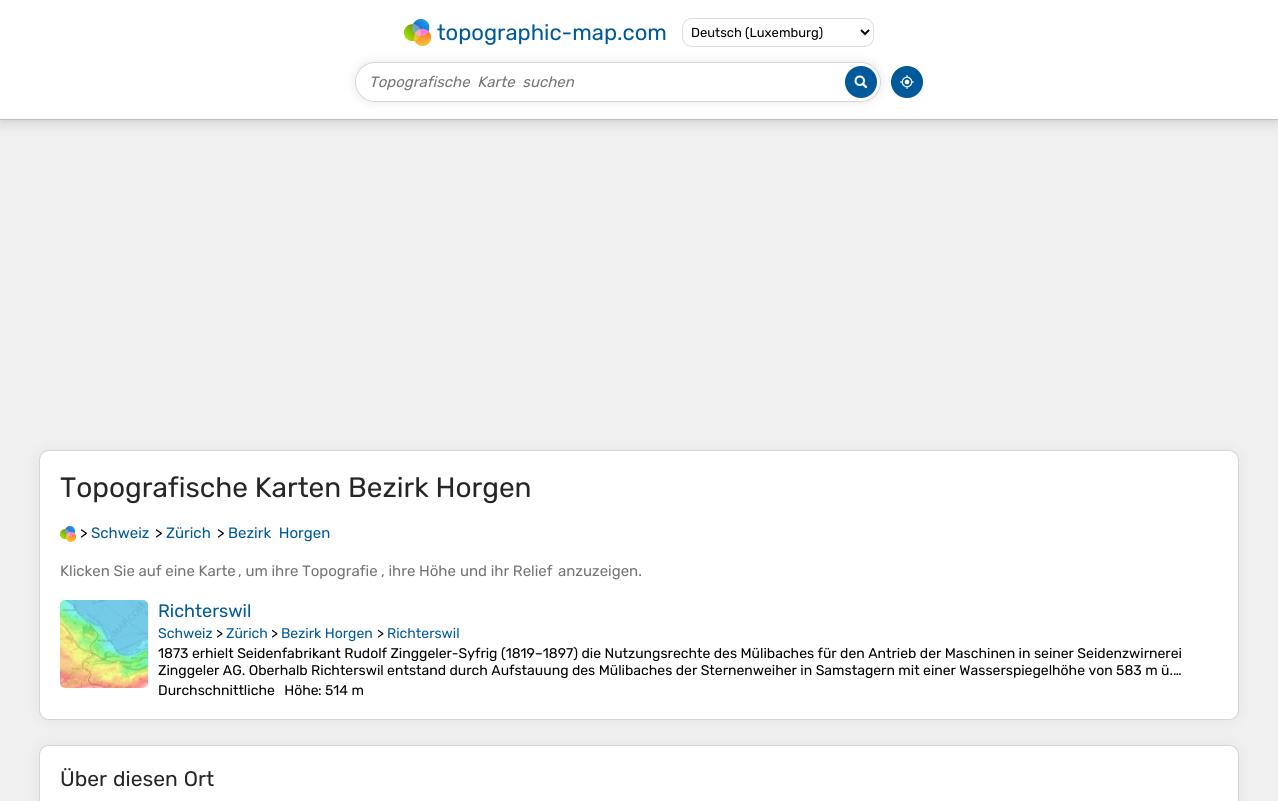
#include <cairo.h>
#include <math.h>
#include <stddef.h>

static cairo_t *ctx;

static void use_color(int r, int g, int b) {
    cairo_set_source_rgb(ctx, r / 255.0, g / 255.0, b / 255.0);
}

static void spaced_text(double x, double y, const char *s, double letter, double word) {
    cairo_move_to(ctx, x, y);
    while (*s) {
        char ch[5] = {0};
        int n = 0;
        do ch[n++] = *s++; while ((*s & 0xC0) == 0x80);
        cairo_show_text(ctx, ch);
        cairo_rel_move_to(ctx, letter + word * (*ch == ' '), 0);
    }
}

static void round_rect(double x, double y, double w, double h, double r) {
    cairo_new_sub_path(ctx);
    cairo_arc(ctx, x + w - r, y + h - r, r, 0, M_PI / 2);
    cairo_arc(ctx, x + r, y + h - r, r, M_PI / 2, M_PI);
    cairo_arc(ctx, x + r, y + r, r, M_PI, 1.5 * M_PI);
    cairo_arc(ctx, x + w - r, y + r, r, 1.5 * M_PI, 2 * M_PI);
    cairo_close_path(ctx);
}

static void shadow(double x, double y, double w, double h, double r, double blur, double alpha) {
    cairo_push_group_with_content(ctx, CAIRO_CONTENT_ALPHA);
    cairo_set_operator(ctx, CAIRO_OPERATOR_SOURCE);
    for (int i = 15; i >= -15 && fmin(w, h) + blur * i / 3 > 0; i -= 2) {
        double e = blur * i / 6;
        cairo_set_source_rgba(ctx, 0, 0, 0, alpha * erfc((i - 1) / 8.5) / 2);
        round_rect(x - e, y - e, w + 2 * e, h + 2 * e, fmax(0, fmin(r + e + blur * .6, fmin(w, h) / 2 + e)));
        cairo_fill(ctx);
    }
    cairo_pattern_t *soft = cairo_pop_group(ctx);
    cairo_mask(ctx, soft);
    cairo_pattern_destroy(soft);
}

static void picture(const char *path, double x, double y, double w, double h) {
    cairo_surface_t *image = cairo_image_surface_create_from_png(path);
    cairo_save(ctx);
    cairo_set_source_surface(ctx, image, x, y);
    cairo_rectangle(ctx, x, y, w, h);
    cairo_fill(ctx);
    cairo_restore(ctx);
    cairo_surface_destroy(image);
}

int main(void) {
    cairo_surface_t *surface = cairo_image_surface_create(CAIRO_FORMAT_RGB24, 1278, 801);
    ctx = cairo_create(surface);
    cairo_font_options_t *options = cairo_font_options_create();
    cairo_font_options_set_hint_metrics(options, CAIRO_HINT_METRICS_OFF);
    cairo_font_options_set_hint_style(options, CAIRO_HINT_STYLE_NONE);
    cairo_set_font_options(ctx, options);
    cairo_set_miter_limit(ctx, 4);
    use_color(240, 240, 240);
    cairo_paint(ctx);
    use_color(0, 0, 0);
    shadow(0, 0, 1278, 120, 0, 7.5, 0.2);
    use_color(255, 255, 255);
    cairo_rectangle(ctx, 0, 0, 1278, 119);
    cairo_fill(ctx);
    use_color(191, 191, 191);
    cairo_rectangle(ctx, 0, 119, 1278, 1);
    cairo_fill(ctx);
    picture("img1.png", 404, 19, 27, 27);
    cairo_select_font_face(ctx, "Rubik", CAIRO_FONT_SLANT_NORMAL, CAIRO_FONT_WEIGHT_NORMAL);
    cairo_set_font_size(ctx, 22);
    use_color(0, 89, 153);
    cairo_move_to(ctx, 437, 40);
    cairo_show_text(ctx, "topographic-map.com");
    round_rect(682.5, 18.5, 191, 28, 9.5);
    use_color(222, 222, 222);
    cairo_set_line_width(ctx, 1);
    cairo_stroke(ctx);
    cairo_new_path(ctx);
    cairo_move_to(ctx, 861, 30);
    cairo_line_to(ctx, 865, 34);
    cairo_line_to(ctx, 869, 30);
    use_color(0, 0, 0);
    cairo_set_line_width(ctx, 2);
    cairo_stroke(ctx);
    cairo_set_font_size(ctx, 13);
    cairo_move_to(ctx, 691, 37);
    cairo_show_text(ctx, "Deutsch (Luxemburg)");
    cairo_save(ctx);
    cairo_set_fill_rule(ctx, CAIRO_FILL_RULE_EVEN_ODD);
    cairo_new_path(ctx);
    cairo_move_to(ctx, 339, 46);
    cairo_line_to(ctx, 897, 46);
    cairo_line_to(ctx, 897, 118);
    cairo_line_to(ctx, 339, 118);
    cairo_close_path(ctx);
    cairo_move_to(ctx, 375, 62);
    cairo_line_to(ctx, 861, 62);
    cairo_curve_to(ctx, 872, 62, 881, 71, 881, 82);
    cairo_curve_to(ctx, 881, 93, 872, 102, 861, 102);
    cairo_line_to(ctx, 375, 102);
    cairo_curve_to(ctx, 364, 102, 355, 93, 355, 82);
    cairo_curve_to(ctx, 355, 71, 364, 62, 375, 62);
    cairo_close_path(ctx);
    cairo_clip(ctx);
    use_color(0, 0, 0);
    shadow(355, 62, 526, 40, 20, 5, 0.1);
    cairo_restore(ctx);
    round_rect(355.5, 62.5, 525, 39, 19.5);
    use_color(214, 214, 214);
    cairo_set_line_width(ctx, 1);
    cairo_stroke(ctx);
    cairo_select_font_face(ctx, "Rubik", CAIRO_FONT_SLANT_ITALIC, CAIRO_FONT_WEIGHT_NORMAL);
    cairo_set_font_size(ctx, 15);
    use_color(117, 117, 117);
    spaced_text(369, 87, "Topografische Karte suchen", 0, 4);
    picture("img2.png", 845, 66, 32, 32);
    picture("img3.png", 891, 66, 32, 32);
    use_color(0, 0, 0);
    shadow(39, 450, 1200, 270, 10, 7.5, 0.05);
    use_color(255, 255, 255);
    round_rect(39.5, 450.5, 1199, 269, 9.5);
    cairo_fill_preserve(ctx);
    use_color(214, 214, 214);
    cairo_stroke(ctx);
    cairo_select_font_face(ctx, "Rubik", CAIRO_FONT_SLANT_NORMAL, CAIRO_FONT_WEIGHT_NORMAL);
    cairo_set_font_size(ctx, 28);
    use_color(38, 38, 38);
    cairo_move_to(ctx, 60, 497);
    cairo_show_text(ctx, "Topografische Karten Bezirk Horgen");
    picture("img4.png", 60, 526, 16, 16);
    cairo_set_font_size(ctx, 15);
    use_color(0, 0, 0);
    cairo_move_to(ctx, 80, 538);
    cairo_show_text(ctx, ">");
    use_color(0, 89, 153);
    cairo_move_to(ctx, 91, 538);
    cairo_show_text(ctx, "Schweiz");
    use_color(0, 0, 0);
    cairo_move_to(ctx, 155, 538);
    cairo_show_text(ctx, ">");
    use_color(0, 89, 153);
    cairo_move_to(ctx, 166, 538);
    cairo_show_text(ctx, "Zürich");
    use_color(0, 0, 0);
    cairo_move_to(ctx, 217, 538);
    cairo_show_text(ctx, ">");
    use_color(0, 89, 153);
    spaced_text(228, 538, "Bezirk Horgen", 0, 4);
    use_color(117, 117, 117);
    cairo_move_to(ctx, 60, 576);
    cairo_show_text(ctx, "Klicken Sie auf eine Karte");
    cairo_move_to(ctx, 238, 576);
    cairo_show_text(ctx, ", um ihre Topografie");
    cairo_move_to(ctx, 381, 576);
    cairo_show_text(ctx, ", ihre Höhe");
    cairo_move_to(ctx, 460, 576);
    cairo_show_text(ctx, "und ihr Relief");
    cairo_move_to(ctx, 558, 576);
    cairo_show_text(ctx, "anzuzeigen.");
    picture("img5.png", 60, 600, 88, 88);
    cairo_set_font_size(ctx, 18);
    use_color(0, 89, 153);
    cairo_move_to(ctx, 158, 617);
    cairo_show_text(ctx, "Richterswil");
    cairo_set_font_size(ctx, 14);
    cairo_move_to(ctx, 158, 638);
    cairo_show_text(ctx, "Schweiz");
    use_color(0, 0, 0);
    cairo_move_to(ctx, 216, 638);
    cairo_show_text(ctx, ">");
    use_color(0, 89, 153);
    cairo_move_to(ctx, 226, 638);
    cairo_show_text(ctx, "Zürich");
    use_color(0, 0, 0);
    cairo_move_to(ctx, 271, 638);
    cairo_show_text(ctx, ">");
    use_color(0, 89, 153);
    cairo_move_to(ctx, 281, 638);
    cairo_show_text(ctx, "Bezirk Horgen");
    use_color(0, 0, 0);
    cairo_move_to(ctx, 377, 638);
    cairo_show_text(ctx, ">");
    use_color(0, 89, 153);
    cairo_move_to(ctx, 387, 638);
    cairo_show_text(ctx, "Richterswil");
    use_color(0, 0, 0);
    cairo_move_to(ctx, 158, 658);
    cairo_show_text(ctx, "1873 erhielt Seidenfabrikant Rudolf Zinggeler-Syfrig (1819–1897) die Nutzungsrechte des Mülibaches für den Antrieb der Maschinen in seiner Seidenzwirnerei");
    cairo_move_to(ctx, 158, 675);
    cairo_show_text(ctx, "Zinggeler AG. Oberhalb Richterswil entstand durch Aufstauung des Mülibaches der Sternenweiher in Samstagern mit einer Wasserspiegelhöhe von 583 m ü.…");
    spaced_text(158, 695, "Durchschnittliche Höhe", 0, 6);
    cairo_move_to(ctx, 318, 695);
    cairo_show_text(ctx, ": 514 m");
    use_color(0, 0, 0);
    shadow(39, 745, 1200, 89, 10, 7.5, 0.05);
    use_color(255, 255, 255);
    round_rect(39.5, 745.5, 1199, 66, 9.5);
    cairo_fill_preserve(ctx);
    use_color(214, 214, 214);
    cairo_stroke(ctx);
    cairo_set_font_size(ctx, 21);
    use_color(38, 38, 38);
    spaced_text(60, 786, "Über diesen Ort", 0, 1);
    cairo_surface_write_to_png(surface, "result.png");
    cairo_font_options_destroy(options);
    cairo_destroy(ctx);
    cairo_surface_destroy(surface);
    return 0;
}
